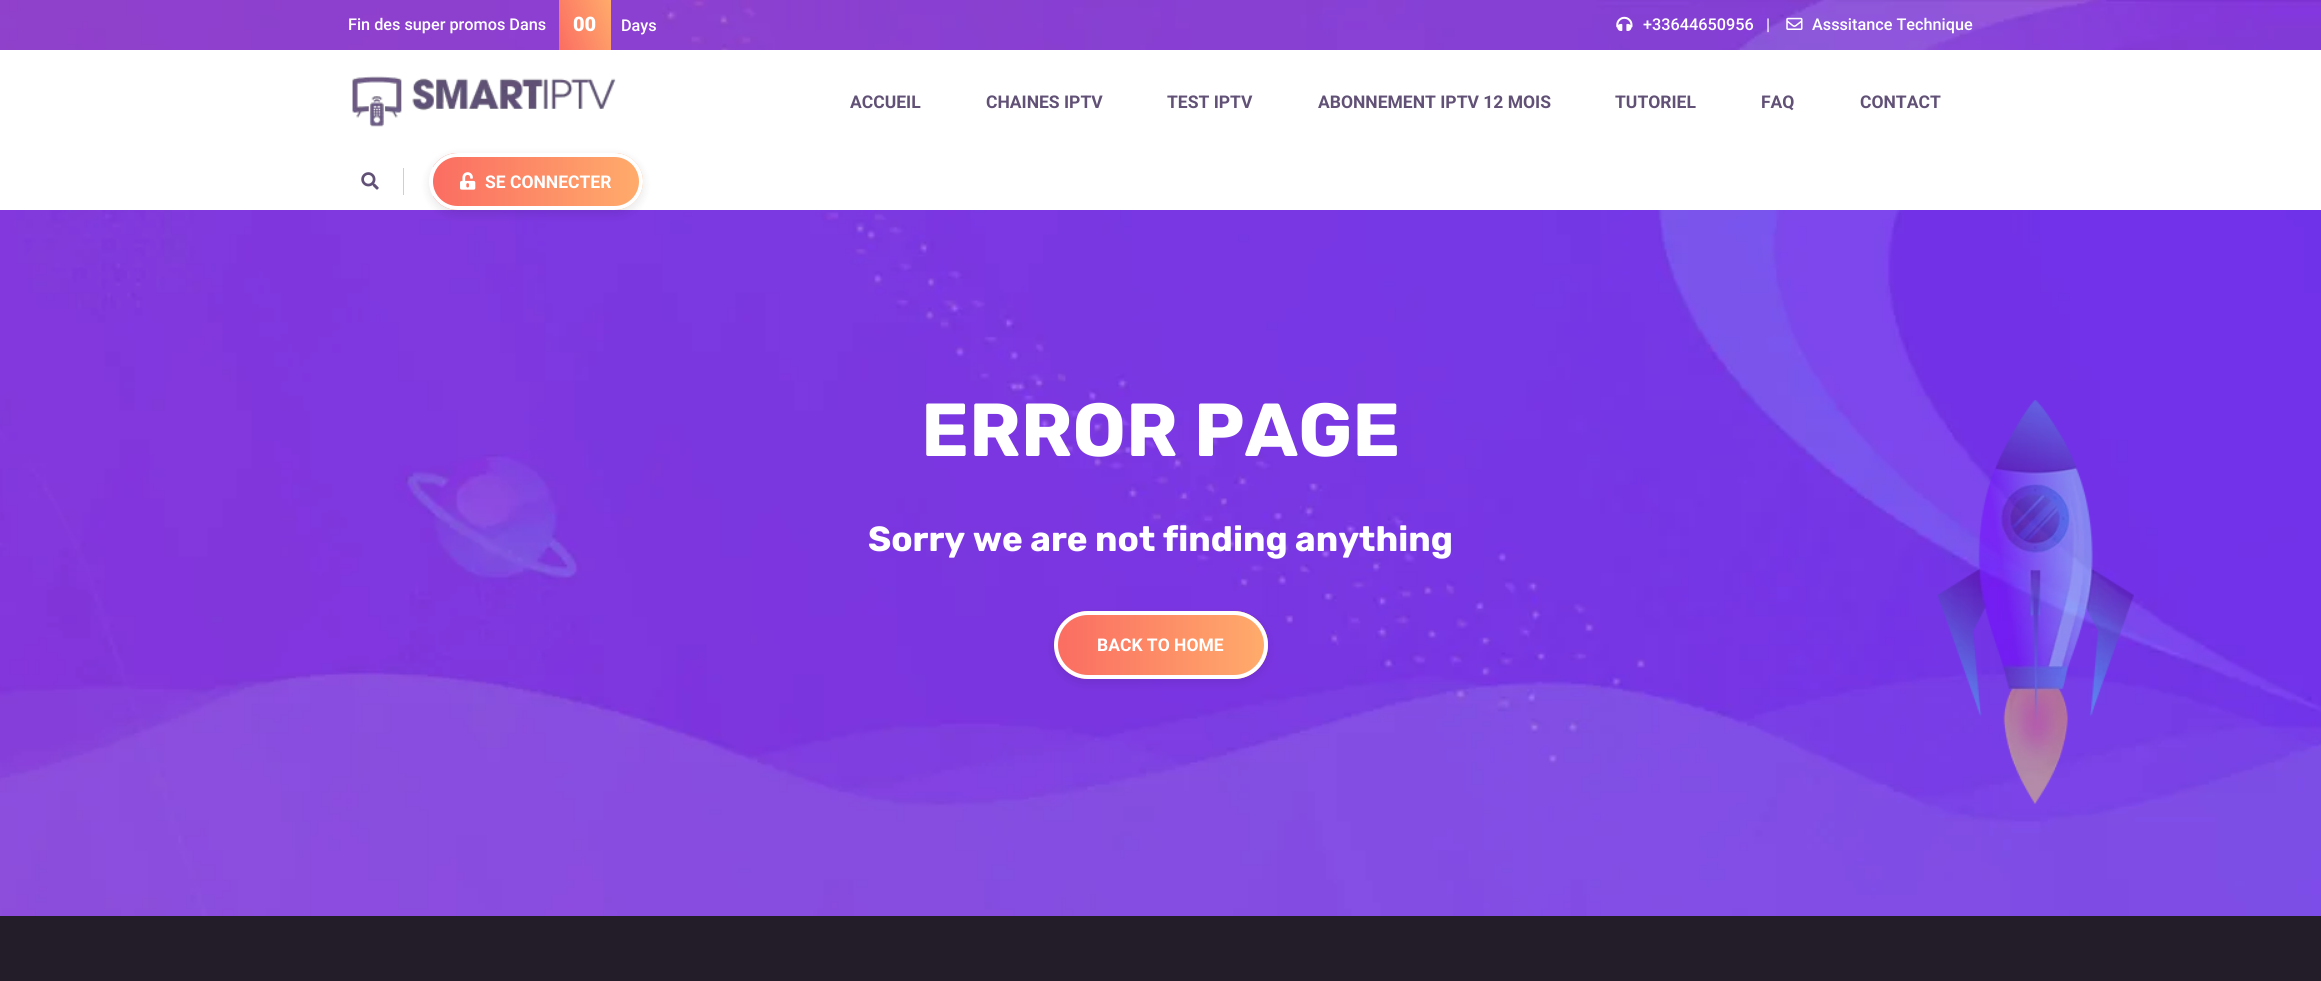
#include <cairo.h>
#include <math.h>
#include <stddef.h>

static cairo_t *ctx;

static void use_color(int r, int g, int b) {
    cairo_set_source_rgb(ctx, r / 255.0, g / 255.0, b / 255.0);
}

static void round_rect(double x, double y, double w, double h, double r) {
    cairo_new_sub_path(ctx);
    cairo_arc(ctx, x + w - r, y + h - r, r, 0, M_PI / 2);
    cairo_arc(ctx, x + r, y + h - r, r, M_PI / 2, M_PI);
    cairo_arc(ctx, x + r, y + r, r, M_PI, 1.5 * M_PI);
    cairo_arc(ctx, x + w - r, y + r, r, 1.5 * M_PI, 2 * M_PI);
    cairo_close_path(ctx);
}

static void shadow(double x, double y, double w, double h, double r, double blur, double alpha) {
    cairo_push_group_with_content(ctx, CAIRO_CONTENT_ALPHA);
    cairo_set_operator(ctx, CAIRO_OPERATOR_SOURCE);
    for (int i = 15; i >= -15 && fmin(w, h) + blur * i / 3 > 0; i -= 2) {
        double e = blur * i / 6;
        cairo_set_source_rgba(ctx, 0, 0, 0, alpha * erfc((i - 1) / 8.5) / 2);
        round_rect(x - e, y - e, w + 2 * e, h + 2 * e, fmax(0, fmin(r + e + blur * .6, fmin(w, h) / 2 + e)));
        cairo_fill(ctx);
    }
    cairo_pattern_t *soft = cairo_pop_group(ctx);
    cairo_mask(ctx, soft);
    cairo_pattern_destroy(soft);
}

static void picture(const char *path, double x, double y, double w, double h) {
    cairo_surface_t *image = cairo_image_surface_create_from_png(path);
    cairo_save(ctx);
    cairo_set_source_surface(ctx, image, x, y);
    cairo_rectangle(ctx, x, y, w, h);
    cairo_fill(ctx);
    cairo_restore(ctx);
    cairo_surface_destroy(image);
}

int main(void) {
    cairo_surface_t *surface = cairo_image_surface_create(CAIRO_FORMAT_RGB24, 2321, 981);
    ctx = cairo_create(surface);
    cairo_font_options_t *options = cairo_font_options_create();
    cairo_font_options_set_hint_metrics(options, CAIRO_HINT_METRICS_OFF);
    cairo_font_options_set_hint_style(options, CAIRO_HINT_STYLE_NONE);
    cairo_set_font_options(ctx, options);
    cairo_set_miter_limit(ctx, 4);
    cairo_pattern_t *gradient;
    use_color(255, 255, 255);
    cairo_paint(ctx);
    picture("img6.png", 0, 0, 2321, 916);
    cairo_set_source_rgba(ctx, 0.984, 0.439, 0.388, 0.13);
    cairo_rectangle(ctx, 0, 0, 2321, 50);
    cairo_fill(ctx);
    cairo_select_font_face(ctx, "Roboto Medium", CAIRO_FONT_SLANT_NORMAL, CAIRO_FONT_WEIGHT_NORMAL);
    cairo_set_font_size(ctx, 16.25);
    use_color(255, 255, 255);
    cairo_move_to(ctx, 348, 30);
    cairo_show_text(ctx, "Fin des super promos Dans");
    gradient = cairo_pattern_create_linear(554, 37, 616, 13);
    cairo_pattern_add_color_stop_rgba(gradient, 0, 0.984, 0.427, 0.384, 1);
    cairo_pattern_add_color_stop_rgba(gradient, 1, 1, 0.671, 0.42, 1);
    cairo_set_source(ctx, gradient);
    cairo_pattern_destroy(gradient);
    cairo_rectangle(ctx, 559, 0, 52, 50);
    cairo_fill(ctx);
    cairo_select_font_face(ctx, "Roboto Black", CAIRO_FONT_SLANT_NORMAL, CAIRO_FONT_WEIGHT_NORMAL);
    cairo_set_font_size(ctx, 20);
    use_color(255, 255, 255);
    cairo_move_to(ctx, 573, 31);
    cairo_show_text(ctx, "00");
    cairo_select_font_face(ctx, "Roboto Medium", CAIRO_FONT_SLANT_NORMAL, CAIRO_FONT_WEIGHT_NORMAL);
    cairo_set_font_size(ctx, 16.25);
    cairo_move_to(ctx, 621, 31);
    cairo_show_text(ctx, "Days");
    picture("img1.png", 1616, 16, 17, 15);
    cairo_move_to(ctx, 1643, 30);
    cairo_show_text(ctx, "+33644650956");
    cairo_move_to(ctx, 1766, 30);
    cairo_show_text(ctx, "|");
    picture("img2.png", 1786, 17, 17, 13);
    cairo_move_to(ctx, 1812, 30);
    cairo_show_text(ctx, "Asssitance Technique");
    cairo_rectangle(ctx, 0, 50, 2321, 160);
    cairo_fill(ctx);
    picture("img3.png", 352, 76, 264, 51);
    cairo_select_font_face(ctx, "Roboto", CAIRO_FONT_SLANT_NORMAL, CAIRO_FONT_WEIGHT_BOLD);
    cairo_set_font_size(ctx, 17.5);
    use_color(97, 81, 118);
    cairo_move_to(ctx, 850, 108);
    cairo_show_text(ctx, "ACCUEIL");
    cairo_move_to(ctx, 986, 108);
    cairo_show_text(ctx, "CHAINES IPTV");
    cairo_move_to(ctx, 1167, 108);
    cairo_show_text(ctx, "TEST IPTV");
    cairo_move_to(ctx, 1318, 108);
    cairo_show_text(ctx, "ABONNEMENT IPTV 12 MOIS");
    cairo_move_to(ctx, 1615, 108);
    cairo_show_text(ctx, "TUTORIEL");
    cairo_move_to(ctx, 1761, 108);
    cairo_show_text(ctx, "FAQ");
    cairo_move_to(ctx, 1860, 108);
    cairo_show_text(ctx, "CONTACT");
    picture("img4.png", 361, 172, 18, 18);
    use_color(224, 192, 236);
    cairo_rectangle(ctx, 403, 168, 1, 27);
    cairo_fill(ctx);
    use_color(0, 0, 0);
    shadow(428, 155, 216, 60, 30, 4.5, 0.08);
    cairo_save(ctx);
    round_rect(429, 153, 214, 57, 28.5);
    cairo_clip(ctx);
    gradient = cairo_pattern_create_linear(433, 181, 845, 181);
    cairo_pattern_add_color_stop_rgba(gradient, 0, 0.984, 0.427, 0.384, 1);
    cairo_pattern_add_color_stop_rgba(gradient, 0.5, 1, 0.671, 0.42, 1);
    cairo_pattern_add_color_stop_rgba(gradient, 1, 0.984, 0.427, 0.384, 1);
    cairo_set_source(ctx, gradient);
    cairo_pattern_destroy(gradient);
    cairo_new_path(ctx);
    cairo_move_to(ctx, 433, 153);
    cairo_line_to(ctx, 614.5, 153);
    cairo_curve_to(ctx, 630, 153, 643, 166, 643, 181.5);
    cairo_curve_to(ctx, 643, 197, 630, 210, 614.5, 210);
    cairo_line_to(ctx, 433, 210);
    cairo_close_path(ctx);
    cairo_fill(ctx);
    cairo_restore(ctx);
    round_rect(431, 155, 210, 53, 26.5);
    use_color(255, 255, 255);
    cairo_set_line_width(ctx, 4);
    cairo_stroke(ctx);
    picture("img5.png", 460, 172, 16, 18);
    cairo_move_to(ctx, 485, 188);
    cairo_show_text(ctx, "SE CONNECTER");
    cairo_select_font_face(ctx, "Rubik", CAIRO_FONT_SLANT_NORMAL, CAIRO_FONT_WEIGHT_BOLD);
    cairo_set_font_size(ctx, 75);
    cairo_move_to(ctx, 921, 456);
    cairo_show_text(ctx, "ERROR PAGE");
    cairo_set_font_size(ctx, 35);
    cairo_move_to(ctx, 868, 551);
    cairo_show_text(ctx, "Sorry we are not finding anything");
    use_color(0, 0, 0);
    shadow(1053, 614, 216, 70, 35, 4.5, 0.08);
    cairo_save(ctx);
    round_rect(1054, 611, 214, 68, 34);
    cairo_clip(ctx);
    gradient = cairo_pattern_create_linear(1058, 645, 1470, 645);
    cairo_pattern_add_color_stop_rgba(gradient, 0, 0.984, 0.427, 0.384, 1);
    cairo_pattern_add_color_stop_rgba(gradient, 0.5, 1, 0.671, 0.42, 1);
    cairo_pattern_add_color_stop_rgba(gradient, 1, 0.984, 0.427, 0.384, 1);
    cairo_set_source(ctx, gradient);
    cairo_pattern_destroy(gradient);
    cairo_new_path(ctx);
    cairo_move_to(ctx, 1058, 611);
    cairo_line_to(ctx, 1234, 611);
    cairo_curve_to(ctx, 1253, 611, 1268, 626, 1268, 645);
    cairo_curve_to(ctx, 1268, 664, 1253, 679, 1234, 679);
    cairo_line_to(ctx, 1058, 679);
    cairo_close_path(ctx);
    cairo_fill(ctx);
    cairo_restore(ctx);
    round_rect(1056, 613, 210, 64, 32);
    use_color(255, 255, 255);
    cairo_stroke(ctx);
    cairo_select_font_face(ctx, "Roboto", CAIRO_FONT_SLANT_NORMAL, CAIRO_FONT_WEIGHT_BOLD);
    cairo_set_font_size(ctx, 17.5);
    cairo_move_to(ctx, 1097, 651);
    cairo_show_text(ctx, "BACK TO HOME");
    picture("img7.png", 1937, 400, 197, 404);
    use_color(34, 29, 41);
    cairo_rectangle(ctx, 0, 916, 2321, 65);
    cairo_fill(ctx);
    cairo_surface_write_to_png(surface, "result.png");
    cairo_font_options_destroy(options);
    cairo_destroy(ctx);
    cairo_surface_destroy(surface);
    return 0;
}
